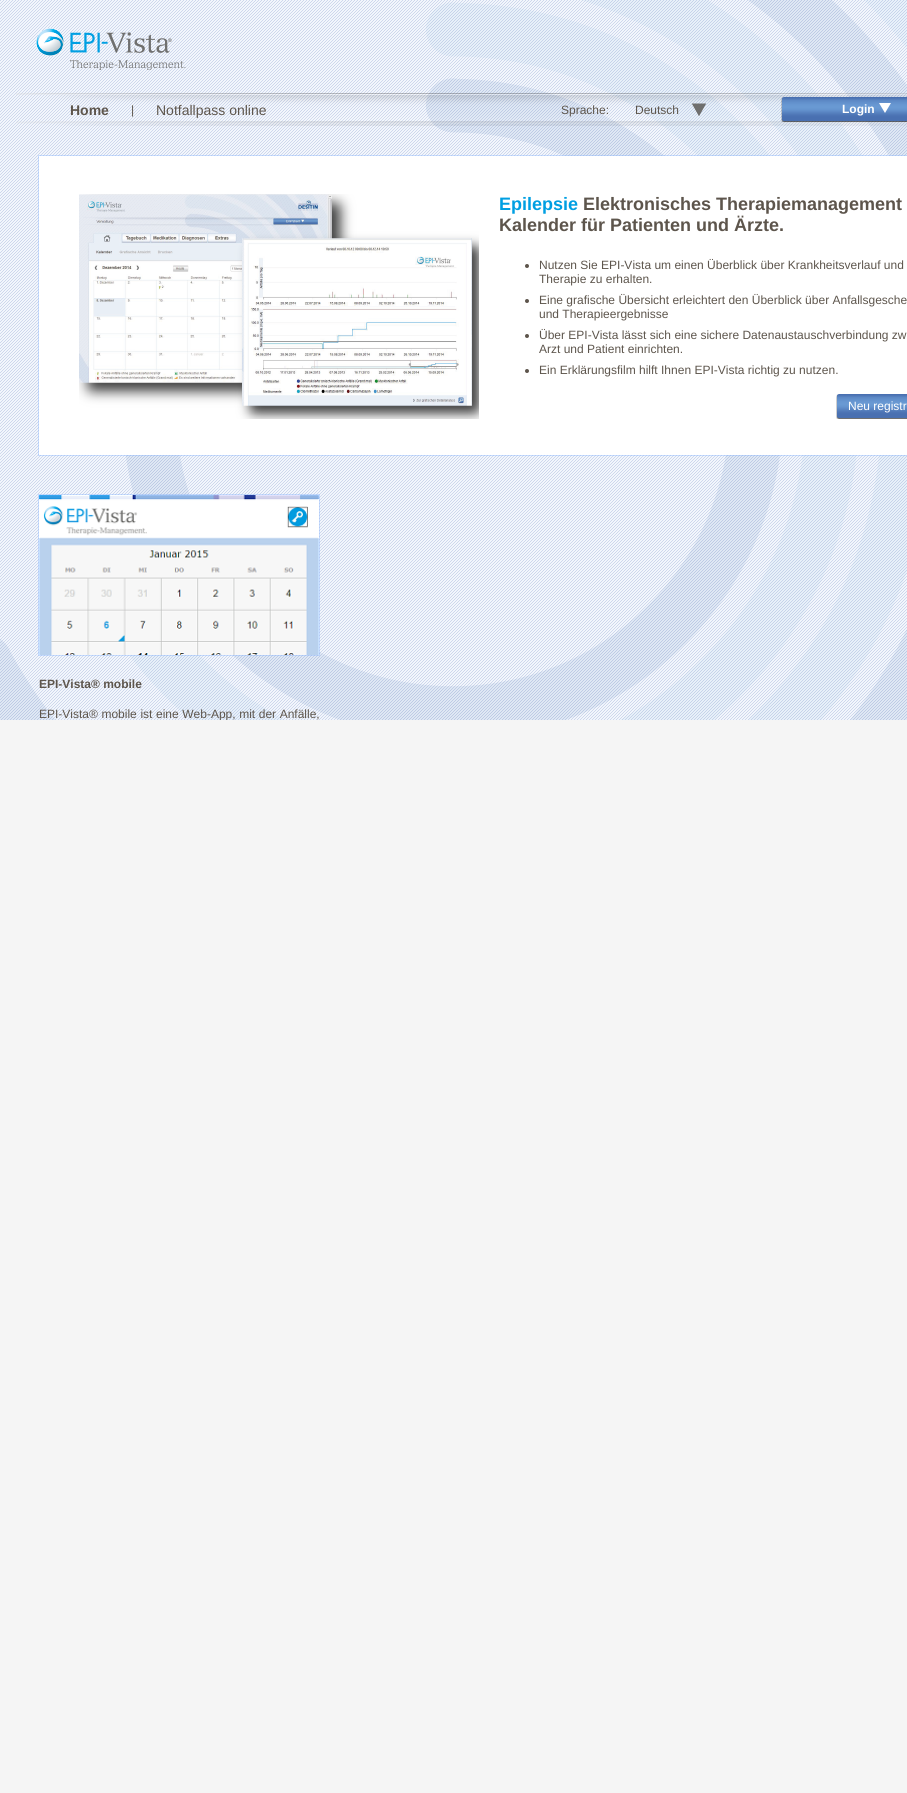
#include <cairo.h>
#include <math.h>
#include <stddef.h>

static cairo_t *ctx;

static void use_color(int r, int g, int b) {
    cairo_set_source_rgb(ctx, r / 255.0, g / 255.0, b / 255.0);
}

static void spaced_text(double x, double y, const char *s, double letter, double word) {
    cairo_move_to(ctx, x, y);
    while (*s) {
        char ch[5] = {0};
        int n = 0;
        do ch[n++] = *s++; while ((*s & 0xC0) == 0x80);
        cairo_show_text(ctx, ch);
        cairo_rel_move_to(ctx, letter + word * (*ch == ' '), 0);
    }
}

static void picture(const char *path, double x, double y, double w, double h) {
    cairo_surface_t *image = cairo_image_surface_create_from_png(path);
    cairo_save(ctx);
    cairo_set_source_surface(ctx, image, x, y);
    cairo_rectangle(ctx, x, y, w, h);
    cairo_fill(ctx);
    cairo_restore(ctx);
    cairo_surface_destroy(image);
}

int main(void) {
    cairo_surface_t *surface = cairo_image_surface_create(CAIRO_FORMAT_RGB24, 907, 1793);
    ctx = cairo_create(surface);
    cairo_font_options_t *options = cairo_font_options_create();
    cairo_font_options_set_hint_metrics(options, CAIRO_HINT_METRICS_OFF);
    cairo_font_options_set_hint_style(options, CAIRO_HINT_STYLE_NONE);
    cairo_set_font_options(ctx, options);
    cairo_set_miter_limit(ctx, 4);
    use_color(245, 245, 245);
    cairo_paint(ctx);
    picture("img1.png", 0, 0, 907, 720);
    picture("img2.png", 36, 28, 150, 42);
    picture("img3.png", 16, 93, 891, 33);
    cairo_select_font_face(ctx, "Liberation Sans", CAIRO_FONT_SLANT_NORMAL, CAIRO_FONT_WEIGHT_BOLD);
    cairo_set_font_size(ctx, 14);
    use_color(93, 85, 76);
    cairo_move_to(ctx, 70, 115);
    cairo_show_text(ctx, "Home");
    cairo_select_font_face(ctx, "Liberation Sans", CAIRO_FONT_SLANT_NORMAL, CAIRO_FONT_WEIGHT_NORMAL);
    cairo_set_font_size(ctx, 12);
    cairo_move_to(ctx, 131, 114);
    cairo_show_text(ctx, "|");
    cairo_set_font_size(ctx, 14);
    cairo_move_to(ctx, 156, 115);
    cairo_show_text(ctx, "Notfallpass online");
    cairo_set_font_size(ctx, 12);
    cairo_move_to(ctx, 561, 114);
    cairo_show_text(ctx, "Sprache:");
    cairo_move_to(ctx, 635, 114);
    cairo_show_text(ctx, "Deutsch");
    picture("img4.png", 691, 103, 16, 13);
    picture("img5.png", 781, 97, 3, 25);
    picture("img6.png", 784, 97, 123, 25);
    cairo_select_font_face(ctx, "Liberation Sans", CAIRO_FONT_SLANT_NORMAL, CAIRO_FONT_WEIGHT_BOLD);
    use_color(255, 255, 255);
    cairo_move_to(ctx, 842, 113);
    cairo_show_text(ctx, "Login");
    cairo_new_path(ctx);
    cairo_move_to(ctx, 879, 103);
    cairo_line_to(ctx, 891, 103);
    cairo_line_to(ctx, 885, 113);
    cairo_close_path(ctx);
    cairo_fill(ctx);
    cairo_rectangle(ctx, 38.5, 155.5, 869, 300);
    cairo_set_source_rgba(ctx, 0.537, 0.706, 1, 0.4);
    cairo_set_line_width(ctx, 1);
    cairo_stroke(ctx);
    use_color(255, 255, 255);
    cairo_rectangle(ctx, 39, 156, 868, 299);
    cairo_fill(ctx);
    picture("img7.png", 79, 194, 400, 225);
    cairo_set_font_size(ctx, 18);
    use_color(0, 159, 226);
    cairo_move_to(ctx, 499, 210);
    cairo_show_text(ctx, "Epilepsie");
    use_color(93, 85, 76);
    cairo_move_to(ctx, 583, 210);
    cairo_show_text(ctx, "Elektronisches Therapiemanagement");
    cairo_move_to(ctx, 499, 231);
    cairo_show_text(ctx, "Kalender für Patienten und Ärzte.");
    cairo_new_path(ctx);
    cairo_arc(ctx, 527, 266, 2, 0, 2 * M_PI);
    cairo_fill(ctx);
    cairo_select_font_face(ctx, "Liberation Sans", CAIRO_FONT_SLANT_NORMAL, CAIRO_FONT_WEIGHT_NORMAL);
    cairo_set_font_size(ctx, 12);
    cairo_move_to(ctx, 539, 269);
    cairo_show_text(ctx, "Nutzen Sie EPI-Vista um einen Überblick über Krankheitsverlauf und");
    cairo_move_to(ctx, 539, 283);
    cairo_show_text(ctx, "Therapie zu erhalten.");
    cairo_new_path(ctx);
    cairo_arc(ctx, 527, 301, 2, 0, 2 * M_PI);
    cairo_fill(ctx);
    cairo_move_to(ctx, 539, 304);
    cairo_show_text(ctx, "Eine grafische Übersicht erleichtert den Überblick über Anfallsgesche");
    cairo_move_to(ctx, 539, 318);
    cairo_show_text(ctx, "und Therapieergebnisse");
    cairo_new_path(ctx);
    cairo_arc(ctx, 527, 336, 2, 0, 2 * M_PI);
    cairo_fill(ctx);
    cairo_move_to(ctx, 539, 339);
    cairo_show_text(ctx, "Über EPI-Vista lässt sich eine sichere Datenaustauschverbindung zw");
    cairo_move_to(ctx, 539, 353);
    cairo_show_text(ctx, "Arzt und Patient einrichten.");
    cairo_new_path(ctx);
    cairo_arc(ctx, 527, 371, 2, 0, 2 * M_PI);
    cairo_fill(ctx);
    cairo_move_to(ctx, 539, 374);
    cairo_show_text(ctx, "Ein Erklärungsfilm hilft Ihnen EPI-Vista richtig zu nutzen.");
    picture("img8.png", 836, 394, 3, 25);
    picture("img9.png", 839, 394, 68, 25);
    use_color(255, 255, 255);
    cairo_move_to(ctx, 848, 410);
    cairo_show_text(ctx, "Neu registr");
    cairo_rectangle(ctx, 38.5, 494.5, 281, 161);
    cairo_set_source_rgba(ctx, 0.537, 0.706, 1, 0.4);
    cairo_stroke(ctx);
    picture("img10.png", 39, 495, 280, 160);
    cairo_select_font_face(ctx, "Liberation Sans", CAIRO_FONT_SLANT_NORMAL, CAIRO_FONT_WEIGHT_BOLD);
    use_color(93, 85, 76);
    cairo_move_to(ctx, 39, 688);
    cairo_show_text(ctx, "EPI-Vista® mobile");
    cairo_save(ctx);
    cairo_rectangle(ctx, 39, 705, 280, 15);
    cairo_clip(ctx);
    cairo_select_font_face(ctx, "Liberation Sans", CAIRO_FONT_SLANT_NORMAL, CAIRO_FONT_WEIGHT_NORMAL);
    spaced_text(39, 718, "EPI-Vista® mobile ist eine Web-App, mit der Anfälle,", 0, 0.25);
    cairo_restore(ctx);
    cairo_surface_write_to_png(surface, "result.png");
    cairo_font_options_destroy(options);
    cairo_destroy(ctx);
    cairo_surface_destroy(surface);
    return 0;
}
